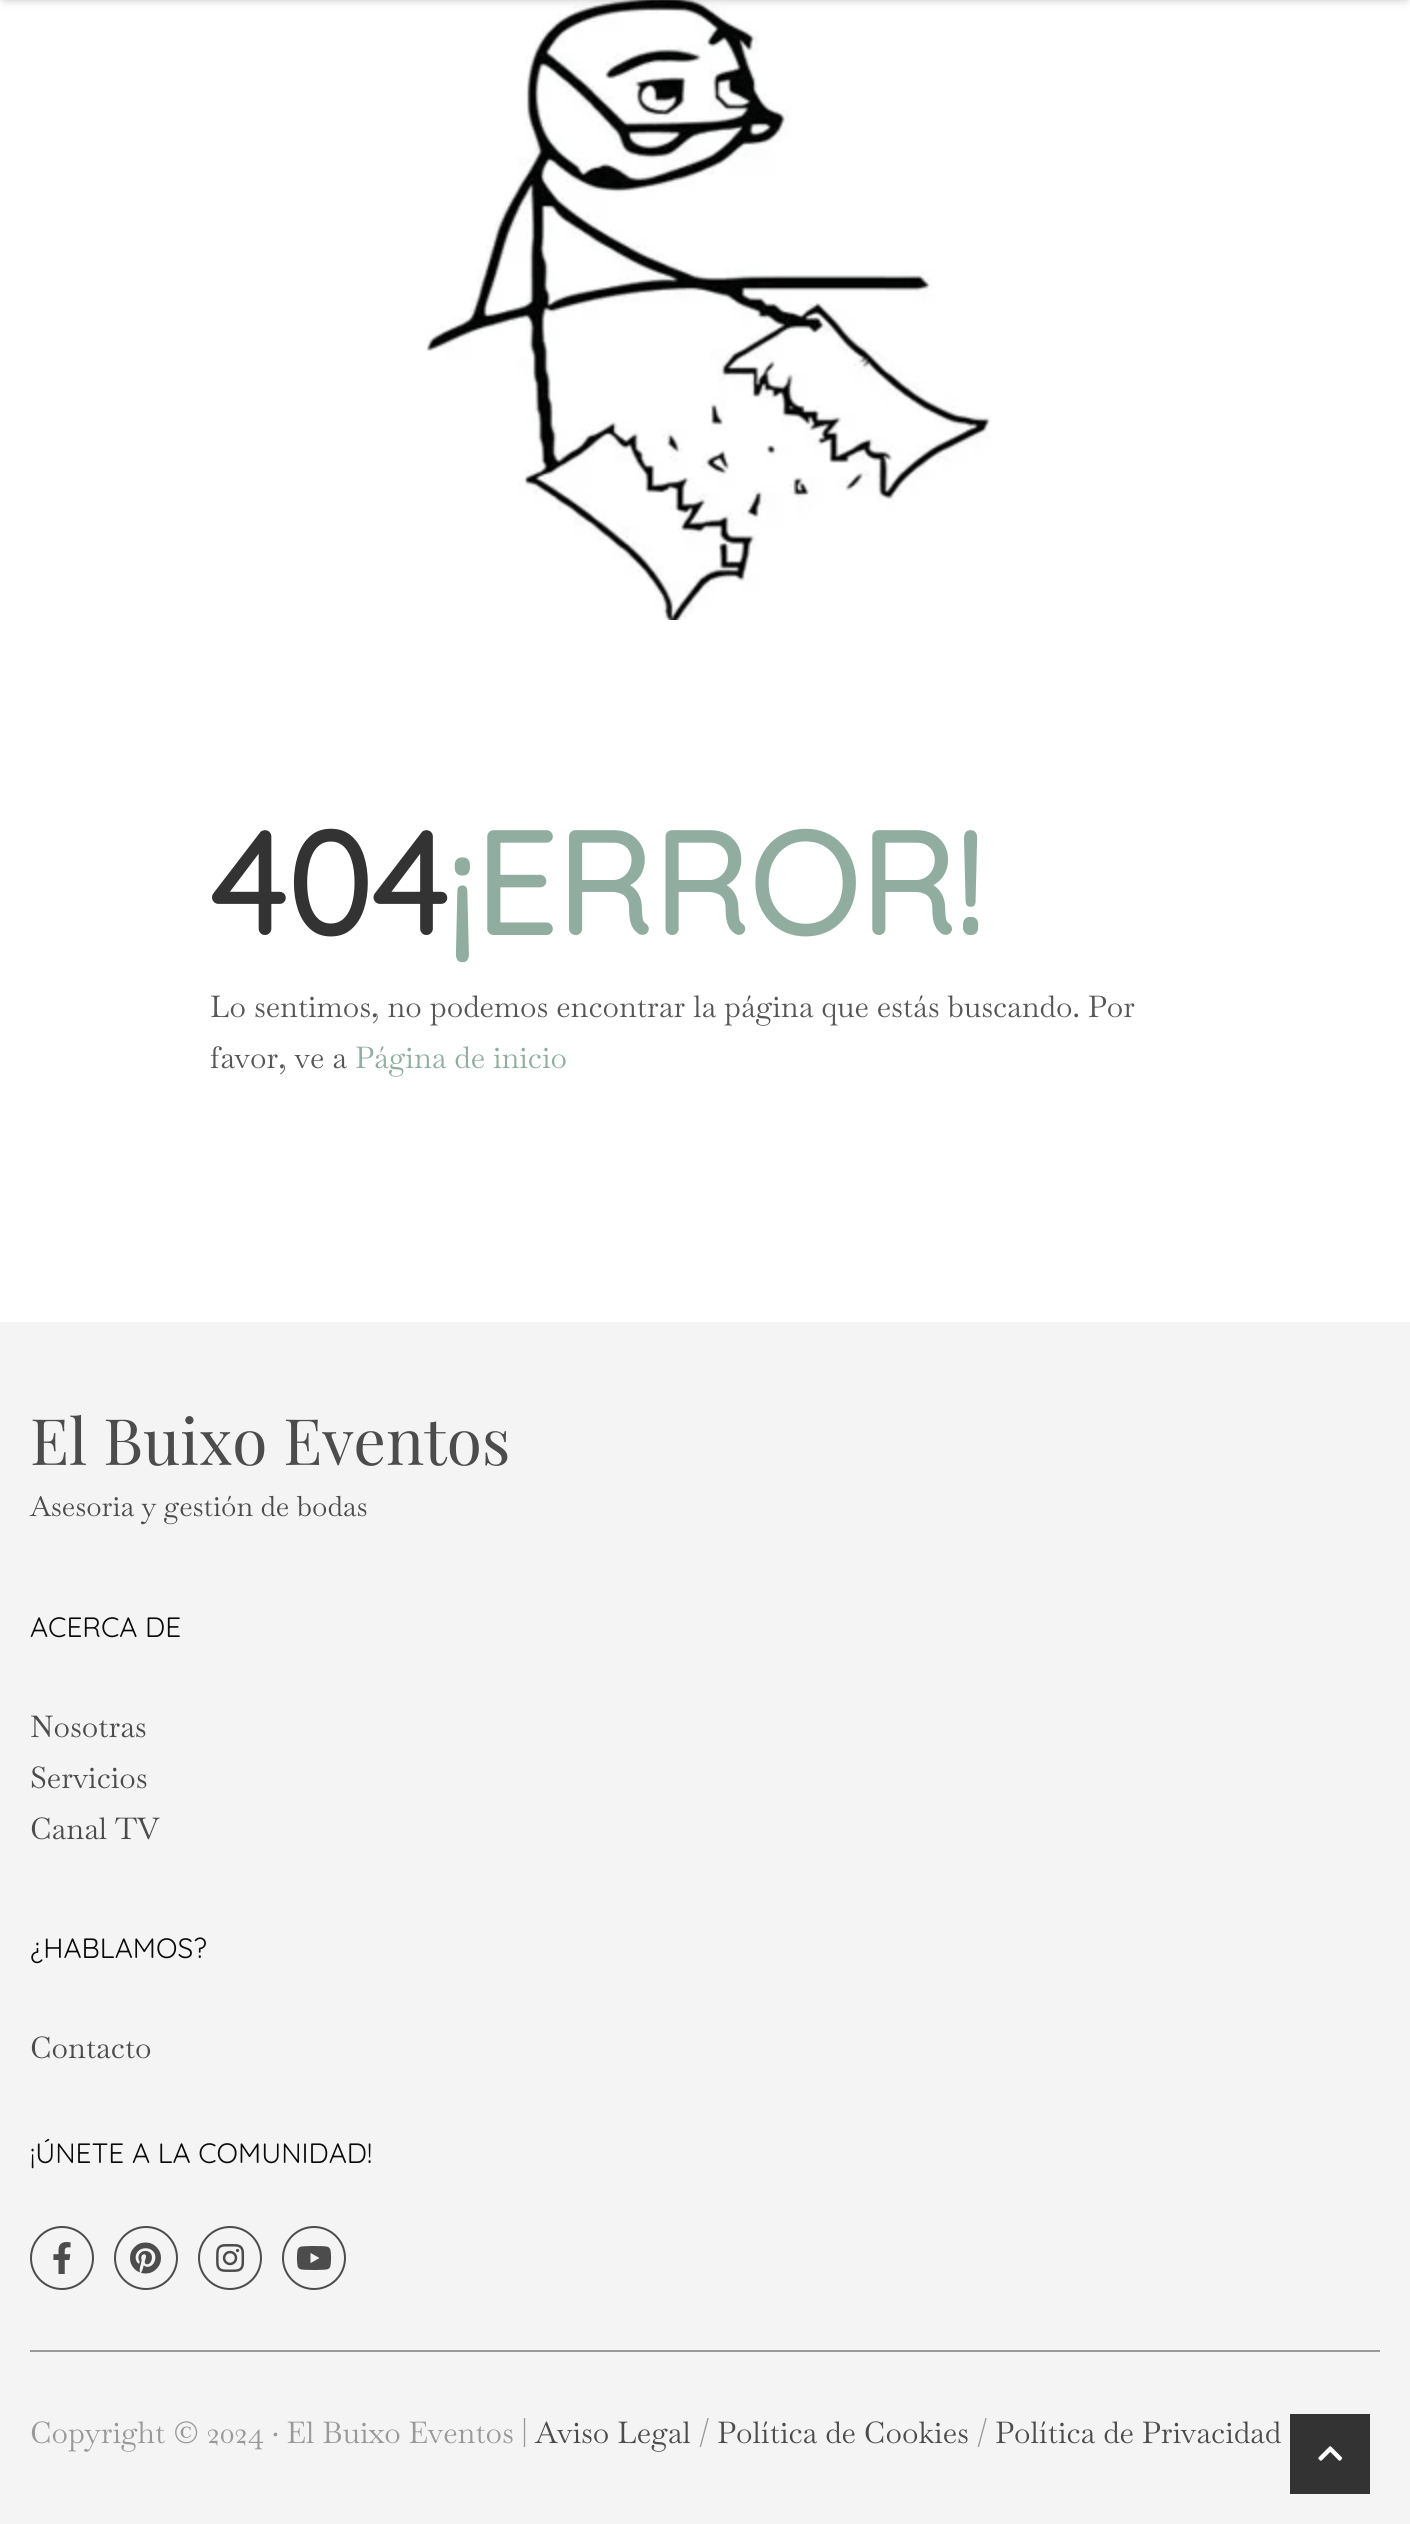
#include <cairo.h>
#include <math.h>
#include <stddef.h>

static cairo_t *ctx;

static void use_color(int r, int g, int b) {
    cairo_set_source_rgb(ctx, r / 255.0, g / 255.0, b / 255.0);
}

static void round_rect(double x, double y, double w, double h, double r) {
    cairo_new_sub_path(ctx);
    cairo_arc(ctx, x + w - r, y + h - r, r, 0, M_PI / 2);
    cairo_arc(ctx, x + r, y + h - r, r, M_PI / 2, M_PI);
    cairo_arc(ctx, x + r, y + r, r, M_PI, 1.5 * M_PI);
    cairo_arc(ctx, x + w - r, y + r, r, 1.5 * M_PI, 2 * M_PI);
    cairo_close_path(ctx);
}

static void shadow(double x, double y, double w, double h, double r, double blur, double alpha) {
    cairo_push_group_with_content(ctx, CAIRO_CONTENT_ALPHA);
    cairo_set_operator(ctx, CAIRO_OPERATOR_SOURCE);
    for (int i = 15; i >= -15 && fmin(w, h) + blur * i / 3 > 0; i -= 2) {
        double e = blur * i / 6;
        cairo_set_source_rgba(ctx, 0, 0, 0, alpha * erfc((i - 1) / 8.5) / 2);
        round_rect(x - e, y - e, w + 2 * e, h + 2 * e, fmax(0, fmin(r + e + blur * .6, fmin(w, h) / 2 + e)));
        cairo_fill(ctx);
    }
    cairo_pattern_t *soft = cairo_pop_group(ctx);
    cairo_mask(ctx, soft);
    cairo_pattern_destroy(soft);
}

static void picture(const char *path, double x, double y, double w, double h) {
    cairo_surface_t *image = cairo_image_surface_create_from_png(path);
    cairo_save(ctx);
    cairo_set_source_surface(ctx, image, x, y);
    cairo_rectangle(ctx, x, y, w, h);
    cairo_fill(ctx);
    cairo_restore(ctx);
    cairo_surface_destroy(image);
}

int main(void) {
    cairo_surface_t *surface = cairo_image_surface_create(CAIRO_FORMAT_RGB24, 1410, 2524);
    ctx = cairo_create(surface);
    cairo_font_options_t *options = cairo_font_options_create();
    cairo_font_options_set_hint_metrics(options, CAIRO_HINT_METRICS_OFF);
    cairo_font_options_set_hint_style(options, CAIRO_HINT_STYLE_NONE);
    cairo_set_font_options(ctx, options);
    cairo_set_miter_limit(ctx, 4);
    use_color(255, 255, 255);
    cairo_paint(ctx);
    picture("img1.png", 425, 0, 566, 620);
    use_color(42, 42, 42);
    shadow(4, -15, 1402, 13, 0, 5, 0.4);
    cairo_select_font_face(ctx, "Quicksand", CAIRO_FONT_SLANT_NORMAL, CAIRO_FONT_WEIGHT_BOLD);
    cairo_set_font_size(ctx, 144);
    use_color(51, 51, 51);
    cairo_move_to(ctx, 210, 935);
    cairo_show_text(ctx, "404");
    use_color(144, 173, 159);
    cairo_move_to(ctx, 447, 935);
    cairo_show_text(ctx, "¡ERROR!");
    cairo_select_font_face(ctx, "Baskervville", CAIRO_FONT_SLANT_NORMAL, CAIRO_FONT_WEIGHT_NORMAL);
    cairo_set_font_size(ctx, 30);
    use_color(86, 86, 86);
    cairo_move_to(ctx, 210, 1017);
    cairo_show_text(ctx, "Lo sentimos, no podemos encontrar la página que estás buscando. Por");
    cairo_move_to(ctx, 210, 1068);
    cairo_show_text(ctx, "favor, ve a");
    use_color(144, 173, 159);
    cairo_move_to(ctx, 355, 1068);
    cairo_show_text(ctx, "Página de inicio");
    use_color(244, 244, 244);
    cairo_rectangle(ctx, 0, 1322, 1410, 1202);
    cairo_fill(ctx);
    cairo_select_font_face(ctx, "Playfair Display", CAIRO_FONT_SLANT_NORMAL, CAIRO_FONT_WEIGHT_NORMAL);
    cairo_set_font_size(ctx, 64);
    use_color(76, 76, 76);
    cairo_move_to(ctx, 30, 1465);
    cairo_show_text(ctx, "El Buixo Eventos");
    cairo_select_font_face(ctx, "Baskervville", CAIRO_FONT_SLANT_NORMAL, CAIRO_FONT_WEIGHT_NORMAL);
    cairo_set_font_size(ctx, 28);
    cairo_move_to(ctx, 30, 1516);
    cairo_show_text(ctx, "Asesoria y gestión de bodas");
    cairo_select_font_face(ctx, "Quicksand Light", CAIRO_FONT_SLANT_NORMAL, CAIRO_FONT_WEIGHT_NORMAL);
    use_color(10, 10, 10);
    cairo_move_to(ctx, 30, 1637);
    cairo_show_text(ctx, "ACERCA DE");
    cairo_select_font_face(ctx, "Baskervville", CAIRO_FONT_SLANT_NORMAL, CAIRO_FONT_WEIGHT_NORMAL);
    cairo_set_font_size(ctx, 30);
    use_color(76, 76, 76);
    cairo_move_to(ctx, 30, 1737);
    cairo_show_text(ctx, "Nosotras");
    cairo_move_to(ctx, 30, 1788);
    cairo_show_text(ctx, "Servicios");
    cairo_move_to(ctx, 30, 1839);
    cairo_show_text(ctx, "Canal TV");
    cairo_select_font_face(ctx, "Quicksand Light", CAIRO_FONT_SLANT_NORMAL, CAIRO_FONT_WEIGHT_NORMAL);
    cairo_set_font_size(ctx, 28);
    use_color(10, 10, 10);
    cairo_move_to(ctx, 30, 1958);
    cairo_show_text(ctx, "¿HABLAMOS?");
    cairo_select_font_face(ctx, "Baskervville", CAIRO_FONT_SLANT_NORMAL, CAIRO_FONT_WEIGHT_NORMAL);
    cairo_set_font_size(ctx, 30);
    use_color(76, 76, 76);
    cairo_move_to(ctx, 30, 2058);
    cairo_show_text(ctx, "Contacto");
    cairo_select_font_face(ctx, "Quicksand Light", CAIRO_FONT_SLANT_NORMAL, CAIRO_FONT_WEIGHT_NORMAL);
    cairo_set_font_size(ctx, 28);
    use_color(10, 10, 10);
    cairo_move_to(ctx, 30, 2163);
    cairo_show_text(ctx, "¡ÚNETE A LA COMUNIDAD!");
    cairo_new_path(ctx);
    cairo_arc(ctx, 62, 2258, 31, 0, 2 * M_PI);
    use_color(76, 76, 76);
    cairo_stroke(ctx);
    picture("img2.png", 53, 2242, 18, 32);
    cairo_arc(ctx, 146, 2258, 31, 0, 2 * M_PI);
    cairo_stroke(ctx);
    picture("img3.png", 130, 2242, 31, 32);
    cairo_arc(ctx, 230, 2258, 31, 0, 2 * M_PI);
    cairo_stroke(ctx);
    picture("img4.png", 216, 2244, 29, 28);
    cairo_arc(ctx, 314, 2258, 31, 0, 2 * M_PI);
    cairo_stroke(ctx);
    picture("img5.png", 296, 2246, 36, 24);
    use_color(153, 153, 153);
    cairo_rectangle(ctx, 30, 2350, 1350, 2);
    cairo_fill(ctx);
    cairo_select_font_face(ctx, "Baskervville", CAIRO_FONT_SLANT_NORMAL, CAIRO_FONT_WEIGHT_NORMAL);
    cairo_set_font_size(ctx, 30);
    cairo_move_to(ctx, 30, 2443);
    cairo_show_text(ctx, "Copyright © 2024 · El Buixo Eventos |");
    use_color(76, 76, 76);
    cairo_move_to(ctx, 535, 2443);
    cairo_show_text(ctx, "Aviso Legal");
    use_color(153, 153, 153);
    cairo_move_to(ctx, 699, 2443);
    cairo_show_text(ctx, "/");
    use_color(76, 76, 76);
    cairo_move_to(ctx, 717, 2443);
    cairo_show_text(ctx, "Política de Cookies");
    use_color(153, 153, 153);
    cairo_move_to(ctx, 977, 2443);
    cairo_show_text(ctx, "/");
    use_color(76, 76, 76);
    cairo_move_to(ctx, 995, 2443);
    cairo_show_text(ctx, "Política de Privacidad");
    use_color(51, 51, 51);
    cairo_rectangle(ctx, 1290, 2414, 80, 80);
    cairo_fill(ctx);
    picture("img6.png", 1318, 2446, 25, 15);
    cairo_surface_write_to_png(surface, "result.png");
    cairo_font_options_destroy(options);
    cairo_destroy(ctx);
    cairo_surface_destroy(surface);
    return 0;
}
